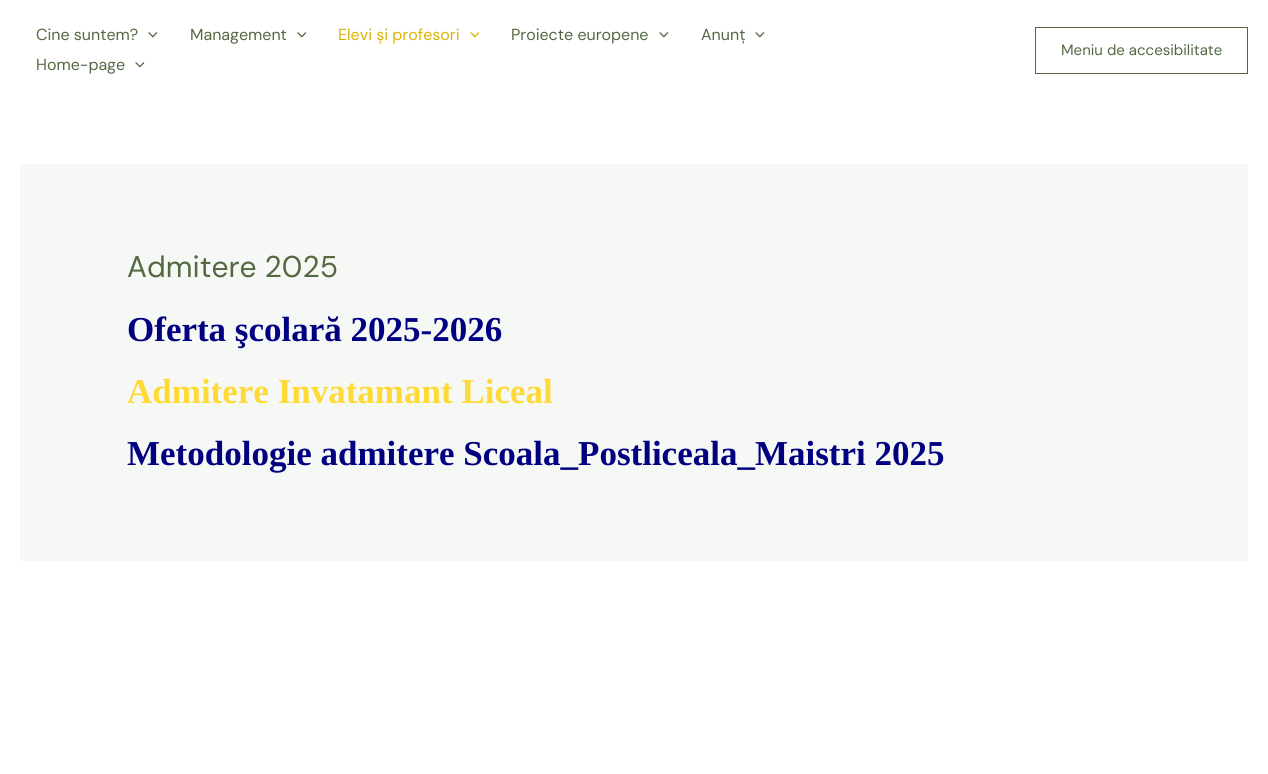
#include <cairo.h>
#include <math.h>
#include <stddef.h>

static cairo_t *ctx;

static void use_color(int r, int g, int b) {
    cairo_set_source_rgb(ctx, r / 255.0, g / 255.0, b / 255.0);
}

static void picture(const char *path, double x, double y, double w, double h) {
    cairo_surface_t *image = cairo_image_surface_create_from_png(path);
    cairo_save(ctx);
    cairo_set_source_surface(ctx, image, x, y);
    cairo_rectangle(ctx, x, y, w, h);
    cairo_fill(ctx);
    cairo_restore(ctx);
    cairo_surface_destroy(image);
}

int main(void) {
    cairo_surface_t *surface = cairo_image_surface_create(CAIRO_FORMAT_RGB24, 1268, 774);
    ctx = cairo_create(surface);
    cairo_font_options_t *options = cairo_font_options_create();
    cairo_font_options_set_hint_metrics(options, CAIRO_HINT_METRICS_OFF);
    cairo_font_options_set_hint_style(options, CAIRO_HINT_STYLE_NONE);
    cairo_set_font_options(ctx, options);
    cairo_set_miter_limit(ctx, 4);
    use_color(255, 255, 255);
    cairo_paint(ctx);
    cairo_select_font_face(ctx, "DM Sans", CAIRO_FONT_SLANT_NORMAL, CAIRO_FONT_WEIGHT_NORMAL);
    cairo_set_font_size(ctx, 16);
    use_color(83, 105, 66);
    cairo_move_to(ctx, 36, 40);
    cairo_show_text(ctx, "Cine suntem?");
    picture("img1.png", 148, 32, 10, 6);
    cairo_move_to(ctx, 190, 40);
    cairo_show_text(ctx, "Management");
    picture("img2.png", 297, 32, 9, 6);
    use_color(218, 178, 0);
    cairo_move_to(ctx, 338, 40);
    cairo_show_text(ctx, "Elevi și profesori");
    picture("img3.png", 470, 32, 9, 6);
    use_color(83, 105, 66);
    cairo_move_to(ctx, 511, 40);
    cairo_show_text(ctx, "Proiecte europene");
    picture("img1.png", 659, 32, 10, 6);
    cairo_move_to(ctx, 701, 40);
    cairo_show_text(ctx, "Anunț");
    picture("img1.png", 755, 32, 10, 6);
    cairo_move_to(ctx, 36, 70);
    cairo_show_text(ctx, "Home-page");
    picture("img1.png", 135, 62, 10, 6);
    cairo_rectangle(ctx, 1035.5, 27.5, 212, 46);
    cairo_set_line_width(ctx, 1);
    cairo_stroke(ctx);
    cairo_set_font_size(ctx, 15);
    cairo_move_to(ctx, 1061, 55);
    cairo_show_text(ctx, "Meniu de accesibilitate");
    use_color(246, 248, 245);
    cairo_rectangle(ctx, 20, 164, 1228, 397);
    cairo_fill(ctx);
    cairo_set_font_size(ctx, 30);
    use_color(83, 105, 66);
    cairo_move_to(ctx, 127, 277);
    cairo_show_text(ctx, "Admitere 2025");
    cairo_select_font_face(ctx, "Liberation Serif", CAIRO_FONT_SLANT_NORMAL, CAIRO_FONT_WEIGHT_BOLD);
    cairo_set_font_size(ctx, 35);
    use_color(0, 0, 128);
    cairo_move_to(ctx, 127, 341);
    cairo_show_text(ctx, "Oferta şcolară 2025-2026");
    use_color(255, 217, 54);
    cairo_move_to(ctx, 127, 403);
    cairo_show_text(ctx, "Admitere Invatamant Liceal");
    use_color(0, 0, 128);
    cairo_move_to(ctx, 127, 465);
    cairo_show_text(ctx, "Metodologie admitere Scoala_Postliceala_Maistri 2025");
    cairo_surface_write_to_png(surface, "result.png");
    cairo_font_options_destroy(options);
    cairo_destroy(ctx);
    cairo_surface_destroy(surface);
    return 0;
}
